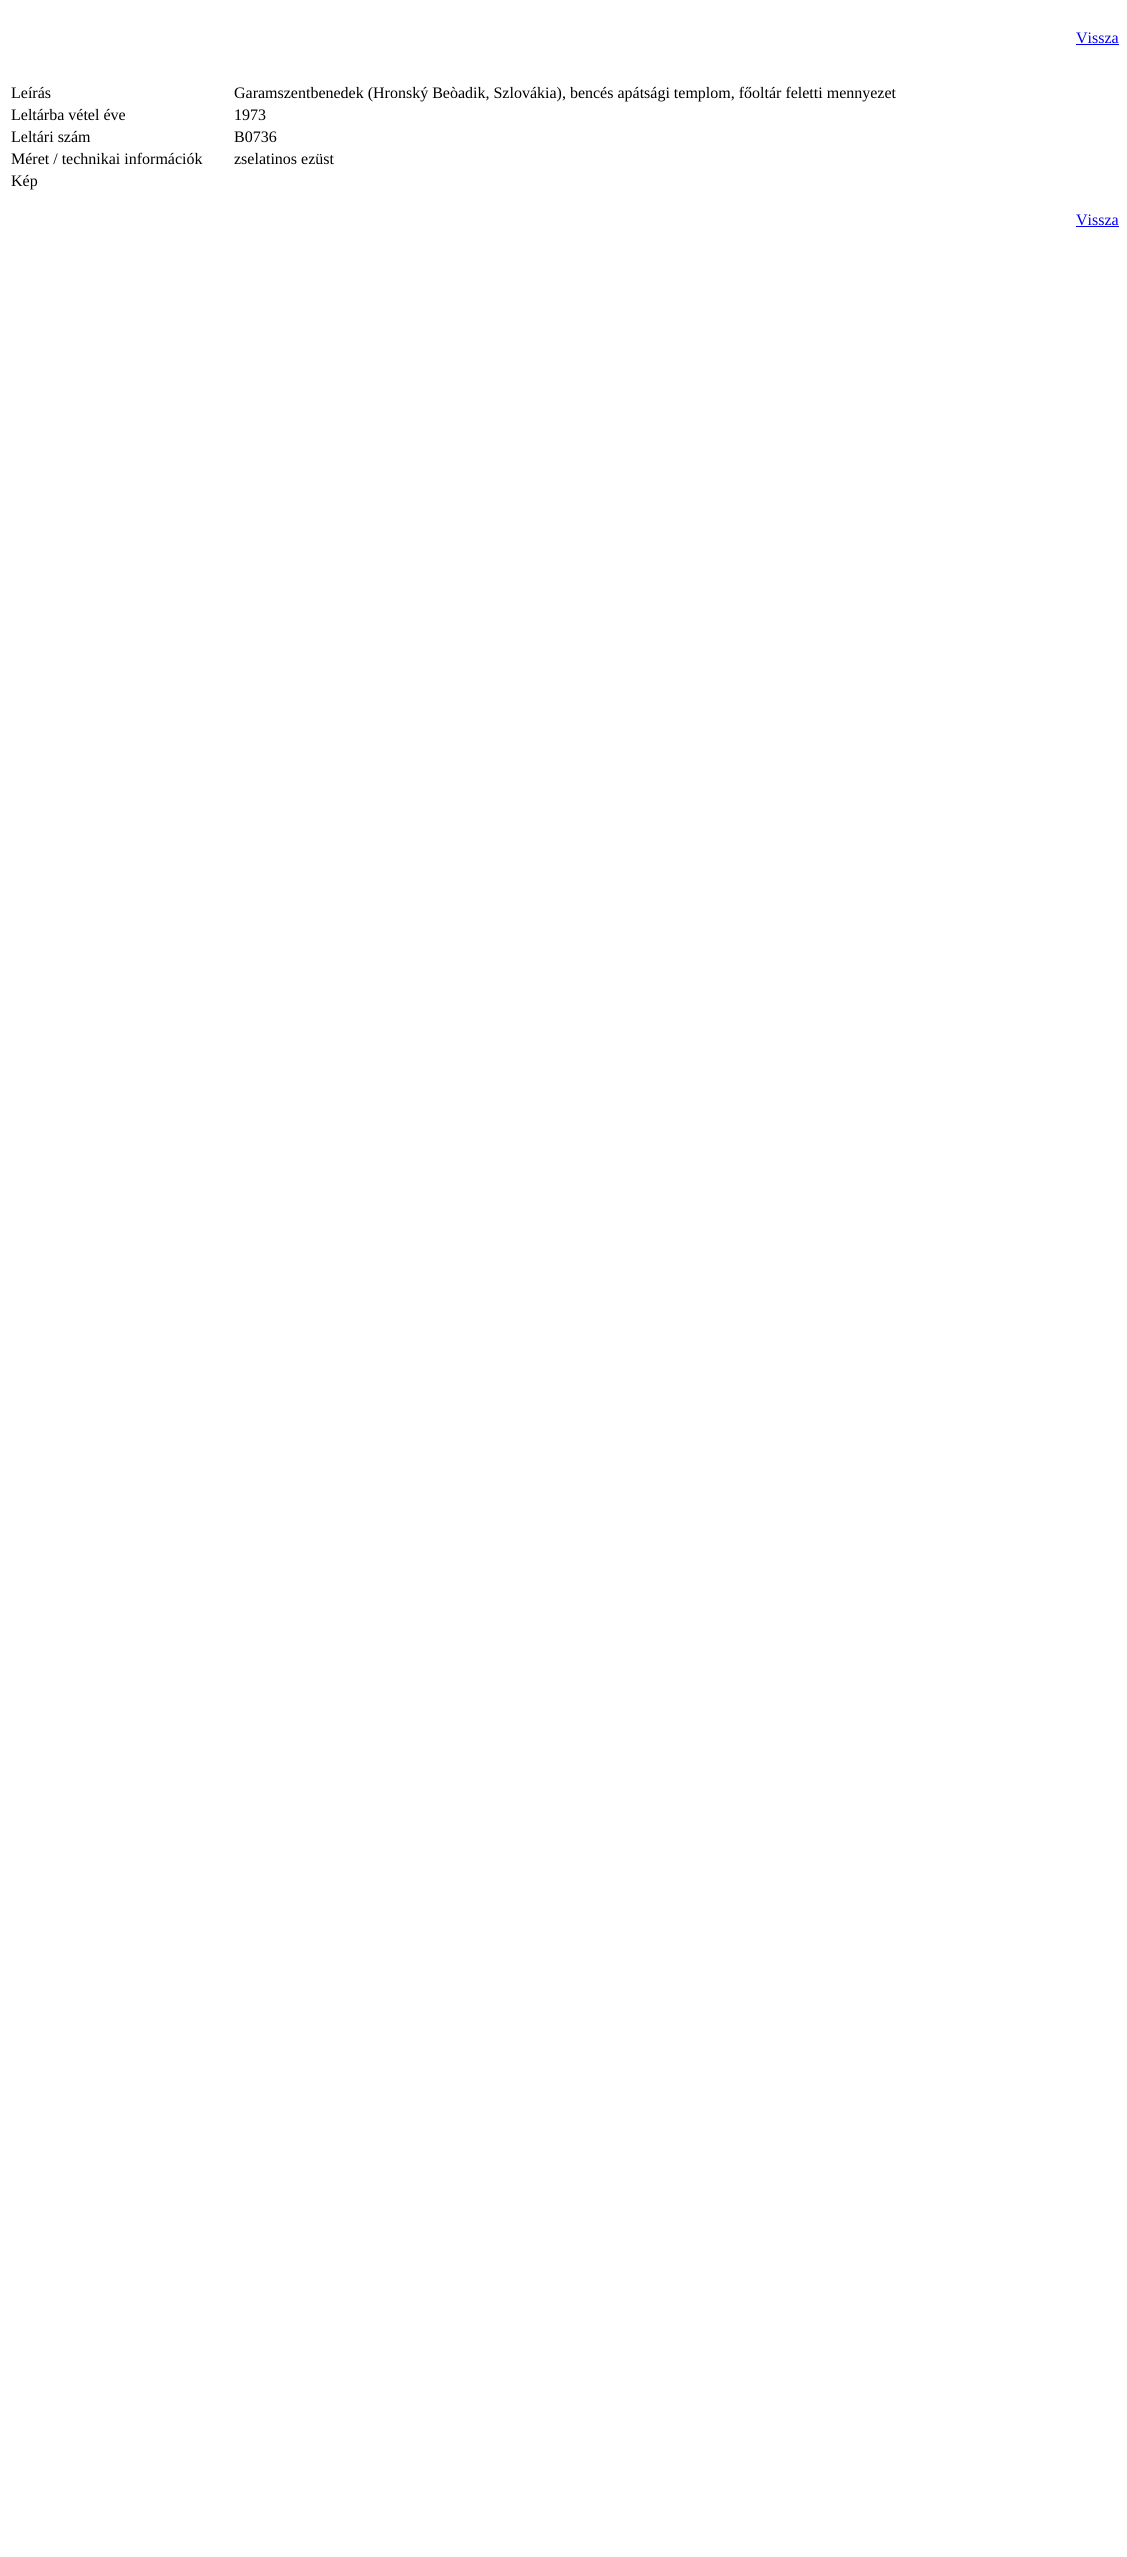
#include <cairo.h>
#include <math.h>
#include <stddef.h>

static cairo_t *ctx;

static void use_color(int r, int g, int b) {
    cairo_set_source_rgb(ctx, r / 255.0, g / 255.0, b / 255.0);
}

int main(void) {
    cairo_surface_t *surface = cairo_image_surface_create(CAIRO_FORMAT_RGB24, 1127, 2557);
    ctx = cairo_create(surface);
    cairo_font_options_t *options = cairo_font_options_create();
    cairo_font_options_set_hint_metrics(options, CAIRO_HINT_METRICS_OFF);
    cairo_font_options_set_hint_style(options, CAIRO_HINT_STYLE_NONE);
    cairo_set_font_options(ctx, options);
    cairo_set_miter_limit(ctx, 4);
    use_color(255, 255, 255);
    cairo_paint(ctx);
    cairo_select_font_face(ctx, "Liberation Serif", CAIRO_FONT_SLANT_NORMAL, CAIRO_FONT_WEIGHT_NORMAL);
    cairo_set_font_size(ctx, 16);
    use_color(0, 0, 238);
    cairo_move_to(ctx, 1076, 43);
    cairo_show_text(ctx, "Vissza");
    cairo_rectangle(ctx, 1076, 44, 43, 1);
    cairo_fill(ctx);
    use_color(0, 0, 0);
    cairo_move_to(ctx, 11, 98);
    cairo_show_text(ctx, "Leírás");
    cairo_move_to(ctx, 234, 98);
    cairo_show_text(ctx, "Garamszentbenedek (Hronský Beòadik, Szlovákia), bencés apátsági templom, főoltár feletti mennyezet");
    cairo_move_to(ctx, 11, 120);
    cairo_show_text(ctx, "Leltárba vétel éve");
    cairo_move_to(ctx, 234, 120);
    cairo_show_text(ctx, "1973");
    cairo_move_to(ctx, 11, 142);
    cairo_show_text(ctx, "Leltári szám");
    cairo_move_to(ctx, 234, 142);
    cairo_show_text(ctx, "B0736");
    cairo_move_to(ctx, 11, 164);
    cairo_show_text(ctx, "Méret / technikai információk");
    cairo_move_to(ctx, 234, 164);
    cairo_show_text(ctx, "zselatinos ezüst");
    cairo_move_to(ctx, 11, 186);
    cairo_show_text(ctx, "Kép");
    use_color(0, 0, 238);
    cairo_move_to(ctx, 1076, 225);
    cairo_show_text(ctx, "Vissza");
    cairo_rectangle(ctx, 1076, 226, 43, 1);
    cairo_fill(ctx);
    cairo_surface_write_to_png(surface, "result.png");
    cairo_font_options_destroy(options);
    cairo_destroy(ctx);
    cairo_surface_destroy(surface);
    return 0;
}
